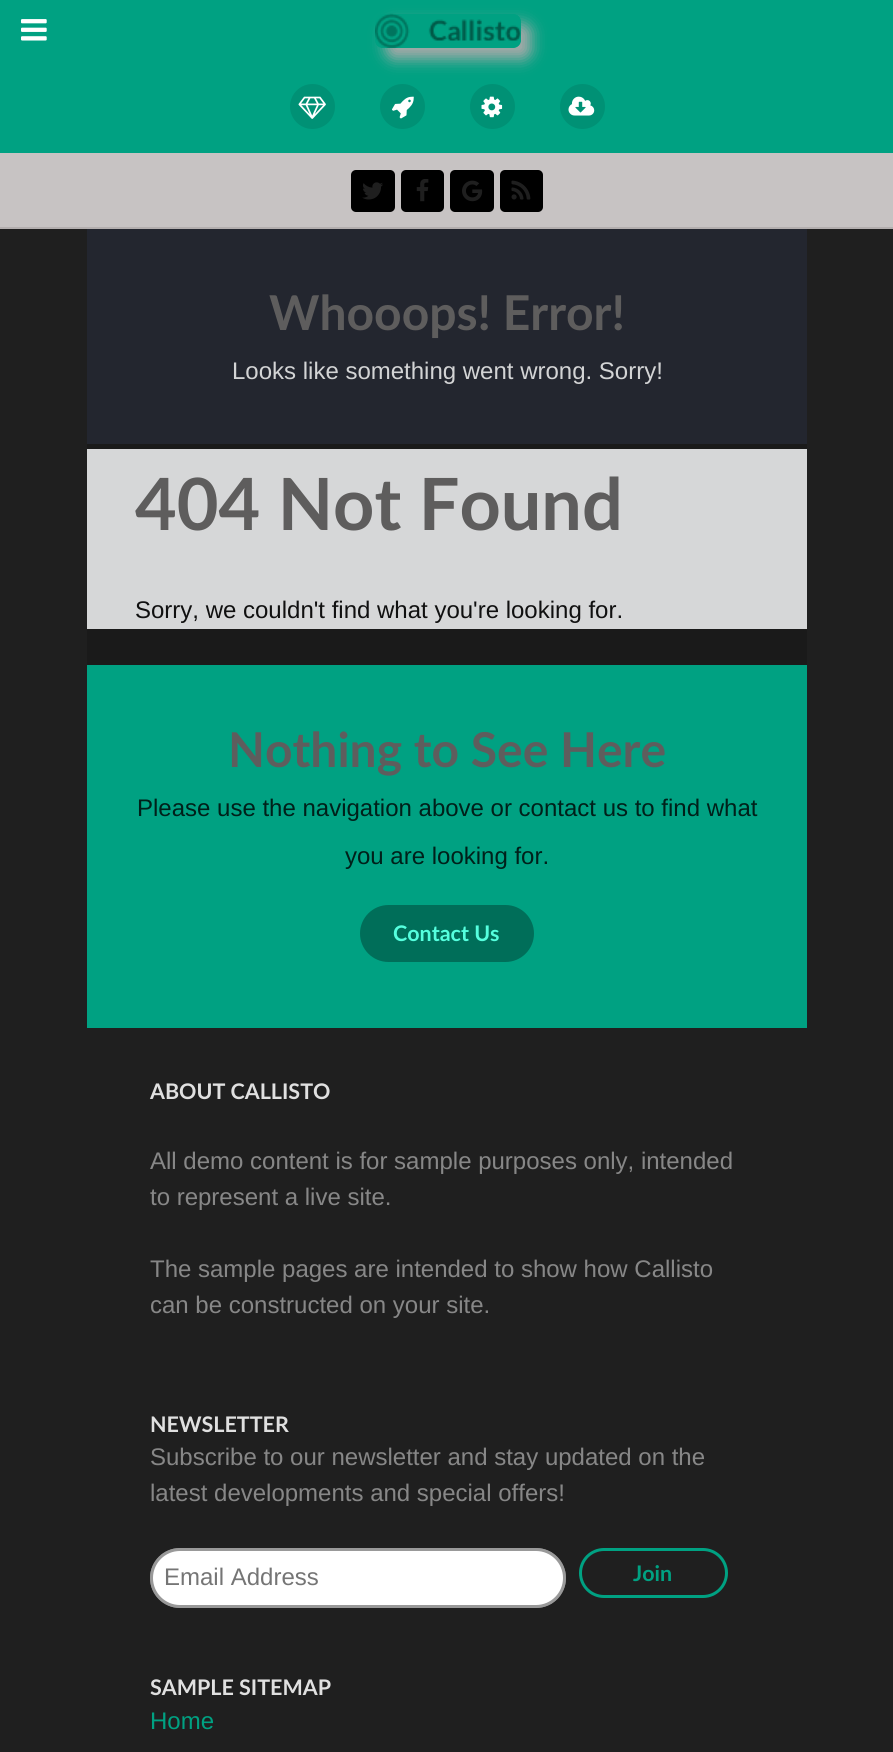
#include <cairo.h>
#include <math.h>
#include <stddef.h>

static cairo_t *ctx;

static void use_color(int r, int g, int b) {
    cairo_set_source_rgb(ctx, r / 255.0, g / 255.0, b / 255.0);
}

static void round_rect(double x, double y, double w, double h, double r) {
    cairo_new_sub_path(ctx);
    cairo_arc(ctx, x + w - r, y + h - r, r, 0, M_PI / 2);
    cairo_arc(ctx, x + r, y + h - r, r, M_PI / 2, M_PI);
    cairo_arc(ctx, x + r, y + r, r, M_PI, 1.5 * M_PI);
    cairo_arc(ctx, x + w - r, y + r, r, 1.5 * M_PI, 2 * M_PI);
    cairo_close_path(ctx);
}

static void shadow(double x, double y, double w, double h, double r, double blur, double alpha) {
    cairo_push_group_with_content(ctx, CAIRO_CONTENT_ALPHA);
    cairo_set_operator(ctx, CAIRO_OPERATOR_SOURCE);
    for (int i = 15; i >= -15 && fmin(w, h) + blur * i / 3 > 0; i -= 2) {
        double e = blur * i / 6;
        cairo_set_source_rgba(ctx, 0, 0, 0, alpha * erfc((i - 1) / 8.5) / 2);
        round_rect(x - e, y - e, w + 2 * e, h + 2 * e, fmax(0, fmin(r + e + blur * .6, fmin(w, h) / 2 + e)));
        cairo_fill(ctx);
    }
    cairo_pattern_t *soft = cairo_pop_group(ctx);
    cairo_mask(ctx, soft);
    cairo_pattern_destroy(soft);
}

static void picture(const char *path, double x, double y, double w, double h) {
    cairo_surface_t *image = cairo_image_surface_create_from_png(path);
    cairo_save(ctx);
    cairo_set_source_surface(ctx, image, x, y);
    cairo_rectangle(ctx, x, y, w, h);
    cairo_fill(ctx);
    cairo_restore(ctx);
    cairo_surface_destroy(image);
}

int main(void) {
    cairo_surface_t *surface = cairo_image_surface_create(CAIRO_FORMAT_RGB24, 893, 1752);
    ctx = cairo_create(surface);
    cairo_font_options_t *options = cairo_font_options_create();
    cairo_font_options_set_hint_metrics(options, CAIRO_HINT_METRICS_OFF);
    cairo_font_options_set_hint_style(options, CAIRO_HINT_STYLE_NONE);
    cairo_set_font_options(ctx, options);
    cairo_set_miter_limit(ctx, 4);
    use_color(31, 31, 31);
    cairo_paint(ctx);
    use_color(0, 161, 130);
    cairo_rectangle(ctx, 0, 0, 893, 153);
    cairo_fill(ctx);
    cairo_save(ctx);
    cairo_set_fill_rule(ctx, CAIRO_FILL_RULE_EVEN_ODD);
    cairo_new_path(ctx);
    cairo_move_to(ctx, 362, 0);
    cairo_line_to(ctx, 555, 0);
    cairo_line_to(ctx, 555, 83);
    cairo_line_to(ctx, 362, 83);
    cairo_close_path(ctx);
    cairo_move_to(ctx, 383, 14);
    cairo_line_to(ctx, 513, 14);
    cairo_curve_to(ctx, 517.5, 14, 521, 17.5, 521, 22);
    cairo_line_to(ctx, 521, 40);
    cairo_curve_to(ctx, 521, 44.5, 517.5, 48, 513, 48);
    cairo_line_to(ctx, 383, 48);
    cairo_curve_to(ctx, 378.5, 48, 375, 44.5, 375, 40);
    cairo_line_to(ctx, 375, 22);
    cairo_curve_to(ctx, 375, 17.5, 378.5, 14, 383, 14);
    cairo_close_path(ctx);
    cairo_clip(ctx);
    use_color(169, 169, 169);
    shadow(386, 24, 145, 35, 8, 7.5, 1);
    cairo_restore(ctx);
    picture("img1.png", 375, 13, 146, 35);
    use_color(0, 145, 117);
    cairo_arc(ctx, 312.5, 106.5, 22.5, 0, 2 * M_PI);
    cairo_fill(ctx);
    picture("img2.png", 298, 96, 28, 23);
    cairo_arc(ctx, 402.5, 106.5, 22.5, 0, 2 * M_PI);
    cairo_fill(ctx);
    picture("img3.png", 392, 96, 22, 23);
    cairo_arc(ctx, 492.5, 106.5, 22.5, 0, 2 * M_PI);
    cairo_fill(ctx);
    picture("img4.png", 481, 96, 22, 22);
    cairo_arc(ctx, 582.5, 106.5, 22.5, 0, 2 * M_PI);
    cairo_fill(ctx);
    picture("img5.png", 568, 96, 27, 20);
    use_color(199, 195, 195);
    cairo_rectangle(ctx, 0, 153, 893, 74);
    cairo_fill(ctx);
    use_color(179, 174, 174);
    cairo_rectangle(ctx, 0, 227, 893, 2);
    cairo_fill(ctx);
    use_color(0, 0, 0);
    round_rect(351, 170, 44, 42, 5);
    cairo_fill(ctx);
    picture("img6.png", 362, 182, 21, 18);
    round_rect(401, 170, 43, 42, 5);
    cairo_fill(ctx);
    picture("img7.png", 416, 179, 13, 23);
    round_rect(450, 170, 44, 42, 5);
    cairo_fill(ctx);
    picture("img8.png", 462, 180, 21, 22);
    round_rect(500, 170, 43, 42, 5);
    cairo_fill(ctx);
    picture("img9.png", 511, 180, 20, 20);
    picture("img10.png", 21, 19, 26, 22);
    use_color(35, 38, 47);
    cairo_rectangle(ctx, 87, 229, 720, 215);
    cairo_fill(ctx);
    cairo_select_font_face(ctx, "Lato", CAIRO_FONT_SLANT_NORMAL, CAIRO_FONT_WEIGHT_BOLD);
    cairo_set_font_size(ctx, 48);
    use_color(94, 93, 93);
    cairo_move_to(ctx, 269, 330);
    cairo_show_text(ctx, "Whooops! Error!");
    cairo_select_font_face(ctx, "Liberation Sans", CAIRO_FONT_SLANT_NORMAL, CAIRO_FONT_WEIGHT_NORMAL);
    cairo_set_font_size(ctx, 24);
    use_color(211, 212, 213);
    cairo_move_to(ctx, 232, 379);
    cairo_show_text(ctx, "Looks like something went wrong. Sorry!");
    use_color(26, 26, 26);
    cairo_rectangle(ctx, 87, 444, 720, 221);
    cairo_fill(ctx);
    use_color(214, 215, 216);
    cairo_rectangle(ctx, 87, 449, 720, 180);
    cairo_fill(ctx);
    cairo_select_font_face(ctx, "Lato", CAIRO_FONT_SLANT_NORMAL, CAIRO_FONT_WEIGHT_BOLD);
    cairo_set_font_size(ctx, 72);
    use_color(94, 93, 93);
    cairo_move_to(ctx, 135, 530);
    cairo_show_text(ctx, "404 Not Found");
    cairo_select_font_face(ctx, "Liberation Sans", CAIRO_FONT_SLANT_NORMAL, CAIRO_FONT_WEIGHT_NORMAL);
    cairo_set_font_size(ctx, 24);
    use_color(16, 16, 16);
    cairo_move_to(ctx, 135, 618);
    cairo_show_text(ctx, "Sorry, we couldn't find what you're looking for.");
    use_color(0, 161, 130);
    cairo_rectangle(ctx, 87, 665, 720, 363);
    cairo_fill(ctx);
    cairo_select_font_face(ctx, "Lato", CAIRO_FONT_SLANT_NORMAL, CAIRO_FONT_WEIGHT_BOLD);
    cairo_set_font_size(ctx, 48);
    use_color(94, 93, 93);
    cairo_move_to(ctx, 228, 767);
    cairo_show_text(ctx, "Nothing to See Here");
    cairo_select_font_face(ctx, "Liberation Sans", CAIRO_FONT_SLANT_NORMAL, CAIRO_FONT_WEIGHT_NORMAL);
    cairo_set_font_size(ctx, 24);
    use_color(0, 32, 26);
    cairo_move_to(ctx, 137, 816);
    cairo_show_text(ctx, "Please use the navigation above or contact us to find what");
    cairo_move_to(ctx, 345, 864);
    cairo_show_text(ctx, "you are looking for.");
    use_color(0, 110, 89);
    round_rect(360, 905, 174, 57, 28.5);
    cairo_fill(ctx);
    cairo_select_font_face(ctx, "Lato", CAIRO_FONT_SLANT_NORMAL, CAIRO_FONT_WEIGHT_BOLD);
    cairo_set_font_size(ctx, 21.5);
    use_color(85, 255, 222);
    cairo_move_to(ctx, 393, 941);
    cairo_show_text(ctx, "Contact Us");
    use_color(224, 224, 224);
    cairo_move_to(ctx, 150, 1099);
    cairo_show_text(ctx, "ABOUT CALLISTO");
    cairo_select_font_face(ctx, "Liberation Sans", CAIRO_FONT_SLANT_NORMAL, CAIRO_FONT_WEIGHT_NORMAL);
    cairo_set_font_size(ctx, 24);
    use_color(135, 135, 135);
    cairo_move_to(ctx, 150, 1169);
    cairo_show_text(ctx, "All demo content is for sample purposes only, intended");
    cairo_move_to(ctx, 150, 1205);
    cairo_show_text(ctx, "to represent a live site.");
    cairo_move_to(ctx, 150, 1277);
    cairo_show_text(ctx, "The sample pages are intended to show how Callisto");
    cairo_move_to(ctx, 150, 1313);
    cairo_show_text(ctx, "can be constructed on your site.");
    cairo_select_font_face(ctx, "Lato", CAIRO_FONT_SLANT_NORMAL, CAIRO_FONT_WEIGHT_BOLD);
    cairo_set_font_size(ctx, 21.5);
    use_color(224, 224, 224);
    cairo_move_to(ctx, 150, 1432);
    cairo_show_text(ctx, "NEWSLETTER");
    cairo_select_font_face(ctx, "Liberation Sans", CAIRO_FONT_SLANT_NORMAL, CAIRO_FONT_WEIGHT_NORMAL);
    cairo_set_font_size(ctx, 24);
    use_color(135, 135, 135);
    cairo_move_to(ctx, 150, 1465);
    cairo_show_text(ctx, "Subscribe to our newsletter and stay updated on the");
    cairo_move_to(ctx, 150, 1501);
    cairo_show_text(ctx, "latest developments and special offers!");
    use_color(255, 255, 255);
    round_rect(150, 1548, 416, 60, 30);
    cairo_fill(ctx);
    round_rect(151.5, 1549.5, 413, 57, 28.5);
    cairo_set_source_rgba(ctx, 0, 0, 0, 0.4);
    cairo_set_line_width(ctx, 3);
    cairo_stroke(ctx);
    use_color(117, 117, 117);
    cairo_move_to(ctx, 164, 1585);
    cairo_show_text(ctx, "Email Address");
    round_rect(580.5, 1549.5, 146, 47, 23.5);
    use_color(0, 161, 130);
    cairo_stroke(ctx);
    cairo_select_font_face(ctx, "Lato", CAIRO_FONT_SLANT_NORMAL, CAIRO_FONT_WEIGHT_BOLD);
    cairo_set_font_size(ctx, 21.5);
    cairo_move_to(ctx, 633, 1581);
    cairo_show_text(ctx, "Join");
    use_color(224, 224, 224);
    cairo_move_to(ctx, 150, 1695);
    cairo_show_text(ctx, "SAMPLE SITEMAP");
    cairo_select_font_face(ctx, "Liberation Sans", CAIRO_FONT_SLANT_NORMAL, CAIRO_FONT_WEIGHT_NORMAL);
    cairo_set_font_size(ctx, 24);
    use_color(0, 161, 130);
    cairo_move_to(ctx, 150, 1729);
    cairo_show_text(ctx, "Home");
    cairo_surface_write_to_png(surface, "result.png");
    cairo_font_options_destroy(options);
    cairo_destroy(ctx);
    cairo_surface_destroy(surface);
    return 0;
}
